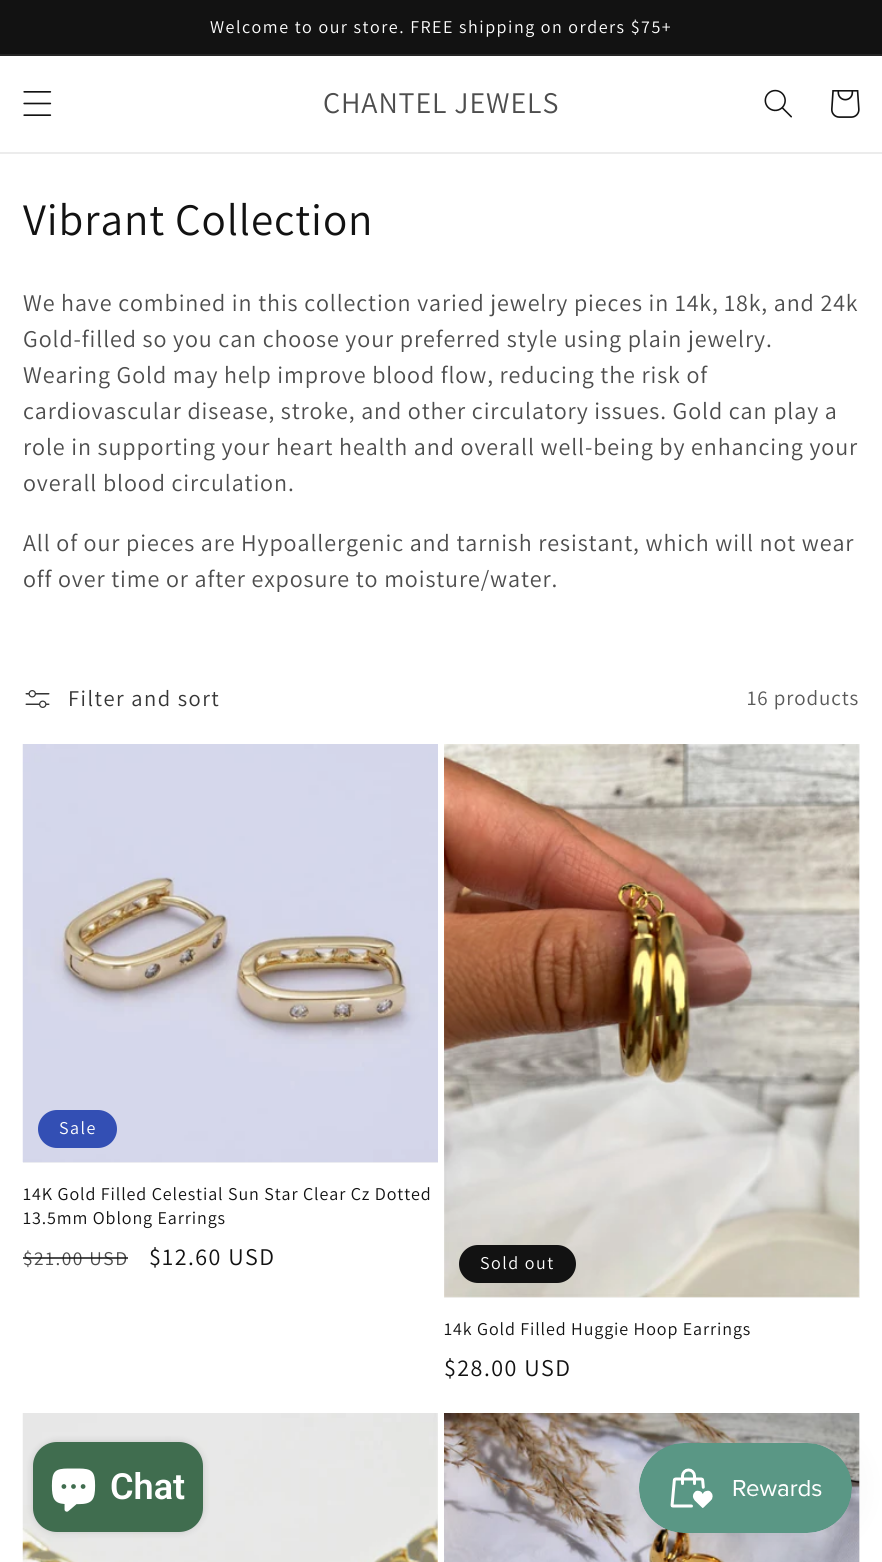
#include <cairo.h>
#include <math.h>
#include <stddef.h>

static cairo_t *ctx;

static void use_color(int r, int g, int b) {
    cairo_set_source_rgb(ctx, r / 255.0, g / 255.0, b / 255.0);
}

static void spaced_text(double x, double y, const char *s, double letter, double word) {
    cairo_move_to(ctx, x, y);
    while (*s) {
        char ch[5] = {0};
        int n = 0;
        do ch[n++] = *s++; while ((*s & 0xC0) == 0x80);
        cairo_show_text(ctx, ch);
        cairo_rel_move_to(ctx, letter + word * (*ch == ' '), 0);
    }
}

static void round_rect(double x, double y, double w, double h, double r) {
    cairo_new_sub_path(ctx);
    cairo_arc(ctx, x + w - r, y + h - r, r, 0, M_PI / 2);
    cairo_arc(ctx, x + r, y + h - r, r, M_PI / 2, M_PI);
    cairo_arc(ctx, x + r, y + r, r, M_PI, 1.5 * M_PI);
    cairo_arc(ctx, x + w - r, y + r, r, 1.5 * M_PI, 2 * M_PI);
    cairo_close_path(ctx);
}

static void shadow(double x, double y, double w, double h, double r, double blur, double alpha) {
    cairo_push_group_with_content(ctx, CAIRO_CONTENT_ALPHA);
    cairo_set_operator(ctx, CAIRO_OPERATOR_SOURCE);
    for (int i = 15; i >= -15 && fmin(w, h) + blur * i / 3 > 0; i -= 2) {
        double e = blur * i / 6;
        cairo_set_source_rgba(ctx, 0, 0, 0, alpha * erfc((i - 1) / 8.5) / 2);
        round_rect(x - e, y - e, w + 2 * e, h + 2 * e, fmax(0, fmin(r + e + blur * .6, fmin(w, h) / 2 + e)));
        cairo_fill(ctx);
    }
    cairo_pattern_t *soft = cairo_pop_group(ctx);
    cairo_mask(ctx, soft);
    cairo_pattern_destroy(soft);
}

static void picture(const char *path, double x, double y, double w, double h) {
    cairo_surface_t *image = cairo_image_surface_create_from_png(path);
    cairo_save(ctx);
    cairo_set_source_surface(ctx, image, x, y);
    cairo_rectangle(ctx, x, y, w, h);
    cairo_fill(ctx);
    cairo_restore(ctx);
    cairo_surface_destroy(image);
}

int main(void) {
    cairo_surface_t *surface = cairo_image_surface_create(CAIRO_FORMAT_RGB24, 882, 1562);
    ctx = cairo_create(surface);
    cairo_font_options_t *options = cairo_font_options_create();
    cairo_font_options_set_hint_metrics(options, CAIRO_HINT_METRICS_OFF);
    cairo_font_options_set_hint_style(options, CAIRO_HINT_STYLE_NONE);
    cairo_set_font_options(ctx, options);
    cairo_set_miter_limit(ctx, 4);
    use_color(255, 255, 255);
    cairo_paint(ctx);
    use_color(18, 18, 18);
    cairo_rectangle(ctx, 0, 0, 882, 54);
    cairo_fill(ctx);
    use_color(37, 37, 37);
    cairo_rectangle(ctx, 0, 54, 882, 2);
    cairo_fill(ctx);
    cairo_select_font_face(ctx, "Assistant", CAIRO_FONT_SLANT_NORMAL, CAIRO_FONT_WEIGHT_NORMAL);
    cairo_set_font_size(ctx, 18);
    use_color(255, 255, 255);
    spaced_text(210, 33, "Welcome to our store. FREE shipping on orders $75+", 1.5, 0);
    use_color(236, 236, 236);
    cairo_rectangle(ctx, 0, 152, 882, 2);
    cairo_fill(ctx);
    picture("img1.png", 23, 91, 29, 25);
    cairo_set_font_size(ctx, 30);
    use_color(77, 77, 77);
    spaced_text(323, 113, "CHANTEL JEWELS", 0.9, 0);
    picture("img2.png", 764, 89, 28, 29);
    picture("img3.png", 831, 90, 29, 28);
    cairo_set_font_size(ctx, 45);
    use_color(18, 18, 18);
    spaced_text(23, 235, "Vibrant Collection", 0.9, 0);
    cairo_set_font_size(ctx, 24);
    use_color(77, 77, 77);
    spaced_text(23, 311, "We have combined in this collection varied jewelry pieces in 14k, 18k, and 24k", 0.9, 0);
    spaced_text(23, 347, "Gold-filled so you can choose your preferred style using plain jewelry.", 0.9, 0);
    spaced_text(23, 383, "Wearing Gold may help improve blood flow, reducing the risk of", 0.9, 0);
    spaced_text(23, 419, "cardiovascular disease, stroke, and other circulatory issues. Gold can play a", 0.9, 0);
    spaced_text(23, 455, "role in supporting your heart health and overall well-being by enhancing your", 0.9, 0);
    spaced_text(23, 491, "overall blood circulation.", 0.9, 0);
    spaced_text(23, 551, "All of our pieces are Hypoallergenic and tarnish resistant, which will not wear", 0.9, 0);
    spaced_text(23, 587, "off over time or after exposure to moisture/water.", 0.9, 0);
    picture("img4.png", 25, 690, 25, 18);
    cairo_set_font_size(ctx, 22.5);
    use_color(54, 54, 54);
    spaced_text(68, 706, "Filter and sort", 1.5, 0);
    cairo_set_font_size(ctx, 21);
    use_color(89, 89, 89);
    spaced_text(747, 705, "16 products", 0.9, 0);
    use_color(243, 243, 243);
    cairo_rectangle(ctx, 23, 1162, 415, 1);
    cairo_fill(ctx);
    picture("img5.png", 22, 744, 416, 419);
    use_color(51, 79, 180);
    round_rect(39, 1111, 77, 36, 18);
    cairo_fill_preserve(ctx);
    cairo_stroke(ctx);
    cairo_set_font_size(ctx, 18);
    use_color(255, 255, 255);
    spaced_text(59, 1134, "Sale", 1.5, 0);
    use_color(18, 18, 18);
    spaced_text(23, 1200, "14K Gold Filled Celestial Sun Star Clear Cz Dotted", 0.9, 0);
    spaced_text(23, 1224, "13.5mm Oblong Earrings", 0.9, 0);
    cairo_set_font_size(ctx, 19.5);
    use_color(77, 77, 77);
    spaced_text(23, 1265, "$21.00 USD", 1.5, 0);
    cairo_set_source_rgba(ctx, 0.071, 0.071, 0.071, 0.75);
    cairo_rectangle(ctx, 23, 1257, 105, 2);
    cairo_fill(ctx);
    cairo_set_font_size(ctx, 24);
    use_color(18, 18, 18);
    spaced_text(149, 1265, "$12.60 USD", 1.5, 0);
    use_color(243, 243, 243);
    cairo_rectangle(ctx, 444, 744, 416, 554);
    cairo_fill(ctx);
    picture("img6.png", 444, 744, 416, 554);
    use_color(18, 18, 18);
    round_rect(460, 1246, 115, 36, 18);
    cairo_fill_preserve(ctx);
    cairo_stroke(ctx);
    cairo_set_font_size(ctx, 18);
    use_color(255, 255, 255);
    spaced_text(480, 1269, "Sold out", 1.5, 0);
    use_color(18, 18, 18);
    spaced_text(444, 1335, "14k Gold Filled Huggie Hoop Earrings", 0.9, 0);
    cairo_set_font_size(ctx, 24);
    spaced_text(444, 1376, "$28.00 USD", 1.5, 0);
    picture("img7.png", 22, 1413, 416, 149);
    use_color(243, 243, 243);
    cairo_rectangle(ctx, 859, 1413, 1, 149);
    cairo_fill(ctx);
    picture("img8.png", 444, 1413, 416, 149);
    use_color(0, 0, 0);
    shadow(33, 1442, 170, 90, 24, 4, 0.15);
    use_color(64, 109, 79);
    round_rect(33, 1442, 170, 90, 24);
    cairo_fill(ctx);
    picture("img9.png", 51, 1468, 45, 44);
    cairo_select_font_face(ctx, "Roboto SemiBold", CAIRO_FONT_SLANT_NORMAL, CAIRO_FONT_WEIGHT_NORMAL);
    cairo_set_font_size(ctx, 36);
    use_color(255, 255, 255);
    cairo_move_to(ctx, 110, 1499);
    cairo_show_text(ctx, "Chat");
    use_color(0, 0, 0);
    shadow(639, 1443, 213, 90, 45, 19, 0.05);
    picture("img10.png", 639, 1443, 213, 90);
    cairo_surface_write_to_png(surface, "result.png");
    cairo_font_options_destroy(options);
    cairo_destroy(ctx);
    cairo_surface_destroy(surface);
    return 0;
}
